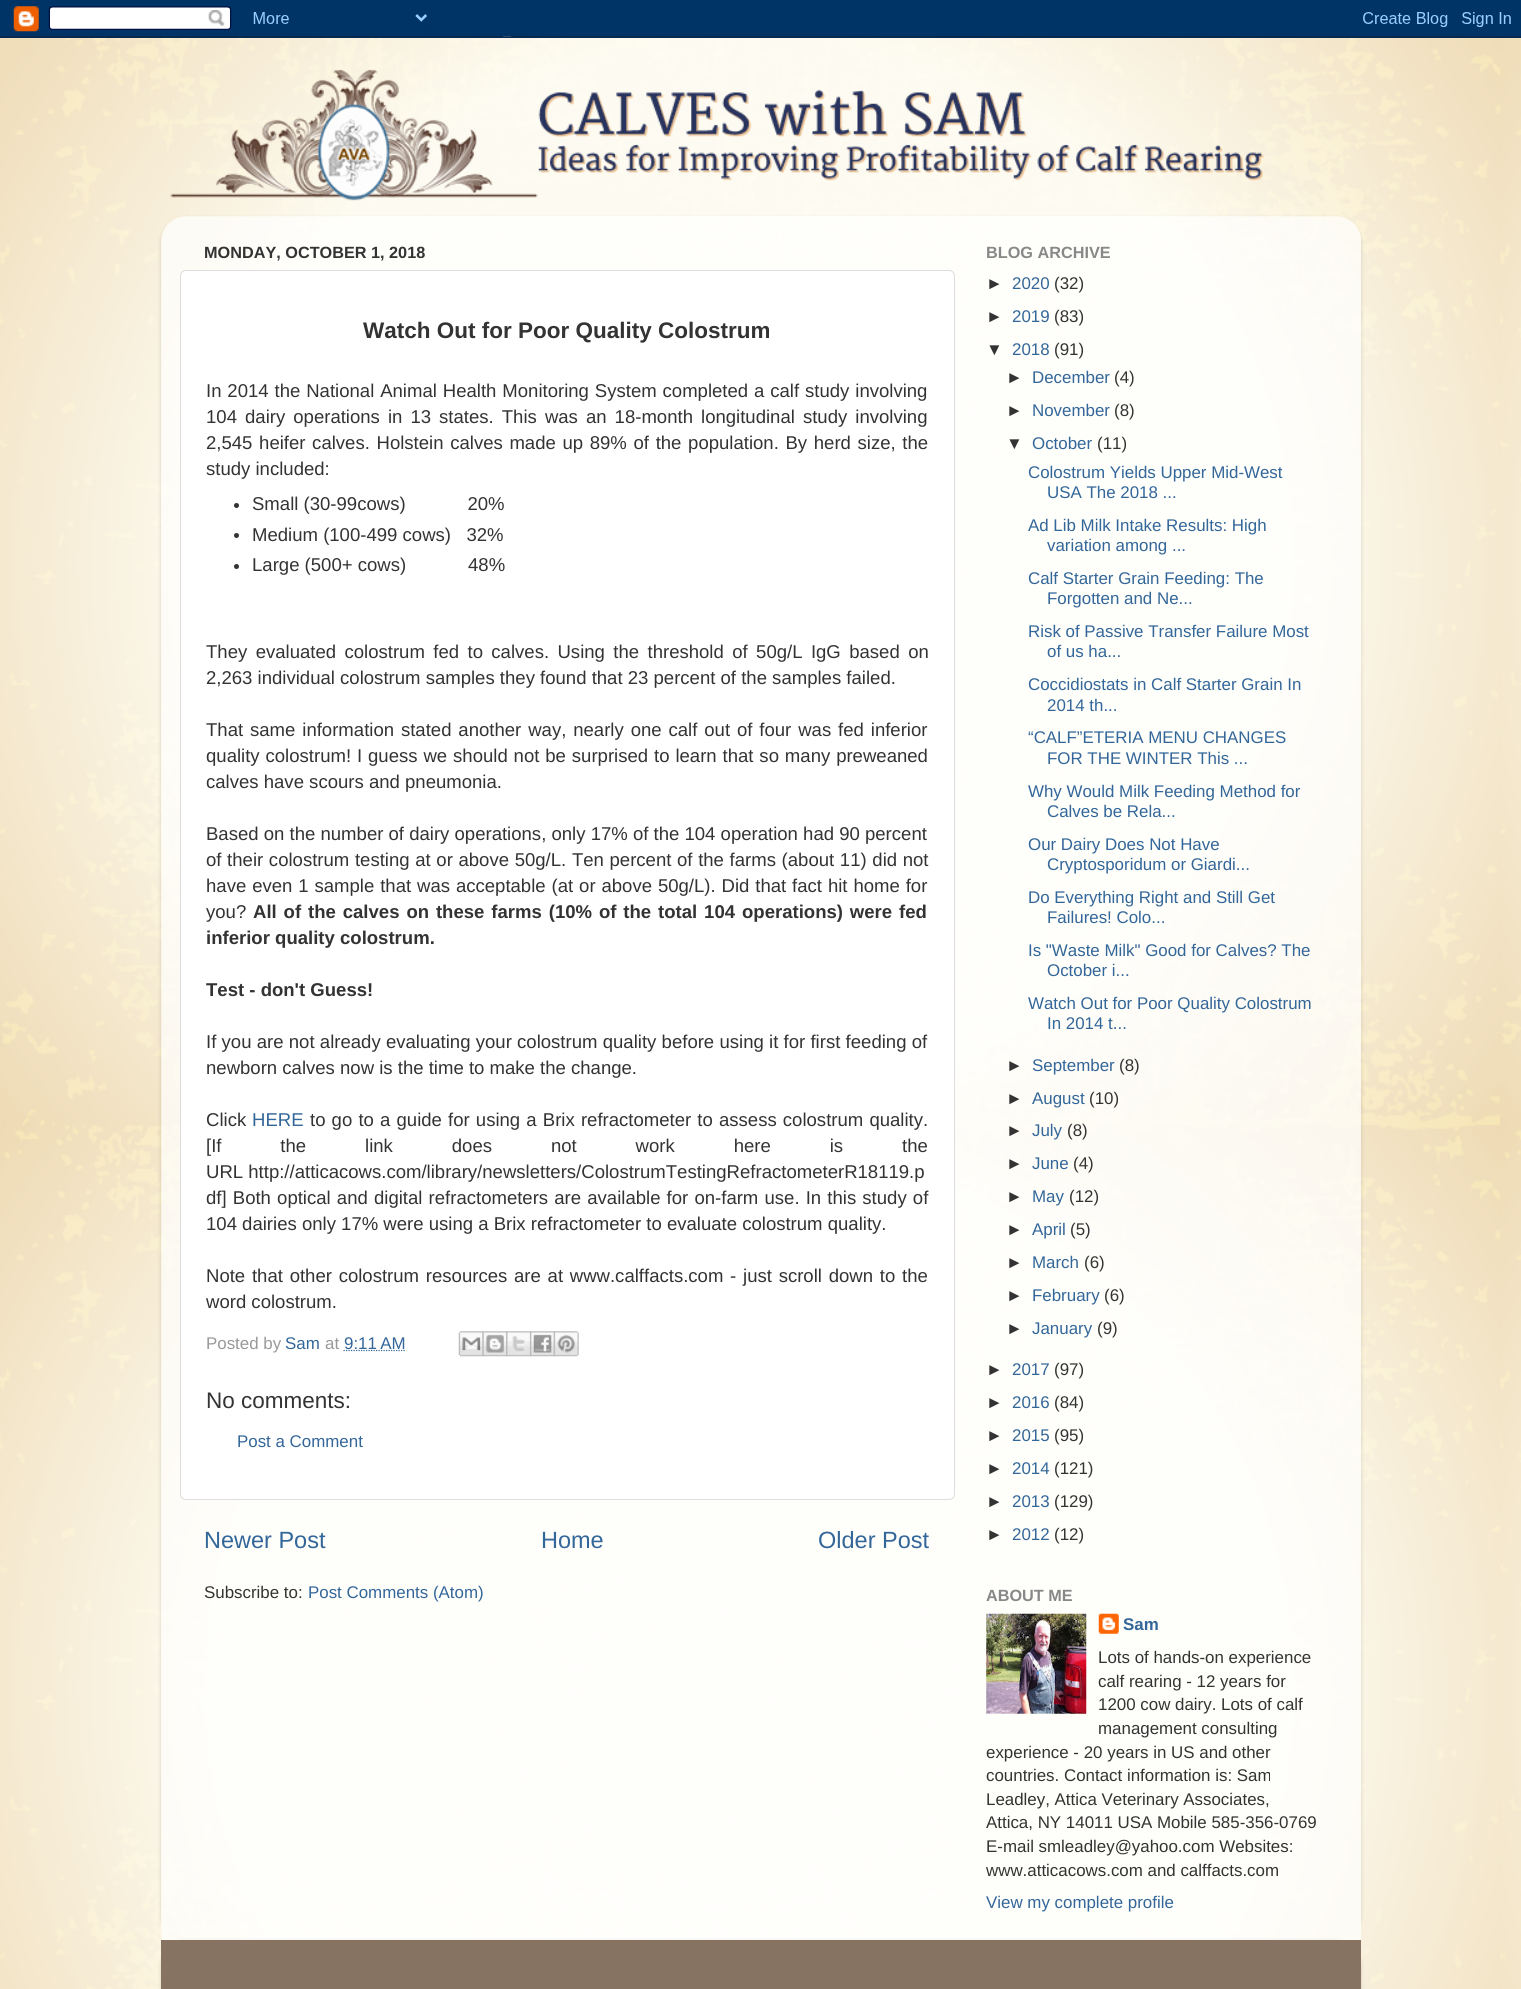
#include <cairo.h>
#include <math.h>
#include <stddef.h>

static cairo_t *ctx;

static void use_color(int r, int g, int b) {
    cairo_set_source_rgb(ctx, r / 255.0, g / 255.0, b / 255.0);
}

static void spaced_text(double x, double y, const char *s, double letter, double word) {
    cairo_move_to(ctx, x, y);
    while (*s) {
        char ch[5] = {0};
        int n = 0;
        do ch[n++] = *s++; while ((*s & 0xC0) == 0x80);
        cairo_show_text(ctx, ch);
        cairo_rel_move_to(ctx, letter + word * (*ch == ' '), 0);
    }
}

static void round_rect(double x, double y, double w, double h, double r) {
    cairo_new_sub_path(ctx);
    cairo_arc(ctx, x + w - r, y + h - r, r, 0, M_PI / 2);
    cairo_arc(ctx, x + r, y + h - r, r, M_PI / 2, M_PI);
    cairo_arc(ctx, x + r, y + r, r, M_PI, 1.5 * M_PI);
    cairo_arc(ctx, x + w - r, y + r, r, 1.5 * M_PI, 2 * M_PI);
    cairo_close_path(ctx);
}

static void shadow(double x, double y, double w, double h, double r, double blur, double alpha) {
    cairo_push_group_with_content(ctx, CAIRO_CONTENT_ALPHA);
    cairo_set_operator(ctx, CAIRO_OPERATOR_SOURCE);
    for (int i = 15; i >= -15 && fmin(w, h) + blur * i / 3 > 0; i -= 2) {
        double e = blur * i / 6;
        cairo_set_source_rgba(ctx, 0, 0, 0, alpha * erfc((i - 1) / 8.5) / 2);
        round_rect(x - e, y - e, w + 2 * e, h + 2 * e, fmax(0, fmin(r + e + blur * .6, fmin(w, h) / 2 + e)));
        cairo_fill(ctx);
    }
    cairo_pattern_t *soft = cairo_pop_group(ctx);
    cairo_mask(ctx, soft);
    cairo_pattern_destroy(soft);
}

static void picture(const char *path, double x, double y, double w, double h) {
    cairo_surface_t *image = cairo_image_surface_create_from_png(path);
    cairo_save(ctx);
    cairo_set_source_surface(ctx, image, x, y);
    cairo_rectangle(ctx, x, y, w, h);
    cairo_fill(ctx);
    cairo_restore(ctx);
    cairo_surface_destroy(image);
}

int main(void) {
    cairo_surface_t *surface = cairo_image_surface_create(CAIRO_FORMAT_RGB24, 1521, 1989);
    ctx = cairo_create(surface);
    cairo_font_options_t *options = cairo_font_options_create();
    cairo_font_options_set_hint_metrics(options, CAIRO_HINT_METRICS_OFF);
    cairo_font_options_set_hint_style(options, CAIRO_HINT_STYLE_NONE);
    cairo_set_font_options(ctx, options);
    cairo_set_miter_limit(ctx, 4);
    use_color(255, 255, 255);
    cairo_paint(ctx);
    picture("img1.png", 0, 36, 1521, 1953);
    picture("img2.png", 0, 0, 1521, 38);
    picture("img3.png", 170, 69, 1094, 132);
    cairo_save(ctx);
    cairo_set_fill_rule(ctx, CAIRO_FILL_RULE_EVEN_ODD);
    cairo_new_path(ctx);
    cairo_move_to(ctx, 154, 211);
    cairo_line_to(ctx, 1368, 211);
    cairo_line_to(ctx, 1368, 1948);
    cairo_line_to(ctx, 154, 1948);
    cairo_close_path(ctx);
    cairo_move_to(ctx, 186, 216);
    cairo_line_to(ctx, 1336, 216);
    cairo_curve_to(ctx, 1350, 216, 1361, 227, 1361, 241);
    cairo_line_to(ctx, 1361, 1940);
    cairo_line_to(ctx, 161, 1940);
    cairo_line_to(ctx, 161, 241);
    cairo_curve_to(ctx, 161, 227, 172, 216, 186, 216);
    cairo_close_path(ctx);
    cairo_clip(ctx);
    use_color(0, 0, 0);
    shadow(161, 218, 1200, 1723, 25, 2, 0.15);
    cairo_restore(ctx);
    picture("img4.png", 161, 216, 1200, 1724);
    cairo_select_font_face(ctx, "Liberation Sans", CAIRO_FONT_SLANT_NORMAL, CAIRO_FONT_WEIGHT_BOLD);
    cairo_set_font_size(ctx, 16.25);
    use_color(51, 51, 51);
    cairo_move_to(ctx, 204, 258);
    cairo_show_text(ctx, "MONDAY, OCTOBER 1, 2018");
    use_color(255, 255, 255);
    round_rect(180.5, 270.5, 774, 1229, 5.5);
    cairo_fill_preserve(ctx);
    use_color(221, 221, 221);
    cairo_set_line_width(ctx, 1);
    cairo_stroke(ctx);
    cairo_set_font_size(ctx, 22.5);
    use_color(51, 51, 51);
    cairo_move_to(ctx, 363, 338);
    cairo_show_text(ctx, "Watch Out for Poor Quality Colostrum");
    cairo_select_font_face(ctx, "Liberation Sans", CAIRO_FONT_SLANT_NORMAL, CAIRO_FONT_WEIGHT_NORMAL);
    cairo_set_font_size(ctx, 18.55);
    spaced_text(206, 397, "In 2014 the National Animal Health Monitoring System completed a calf study involving", 0, 0.75);
    spaced_text(206, 423, "104 dairy operations in 13 states. This was an 18-month longitudinal study involving", 0, 2.9);
    spaced_text(206, 449, "2,545 heifer calves. Holstein calves made up 89% of the population. By herd size, the", 0, 1.5);
    cairo_move_to(ctx, 206, 475);
    cairo_show_text(ctx, "study included:");
    cairo_new_path(ctx);
    cairo_arc(ctx, 236.5, 505.5, 2.5, 0, 2 * M_PI);
    cairo_fill(ctx);
    cairo_move_to(ctx, 252, 510);
    cairo_show_text(ctx, "Small (30-99cows)            20%");
    cairo_new_path(ctx);
    cairo_arc(ctx, 236.5, 535.5, 2.5, 0, 2 * M_PI);
    cairo_fill(ctx);
    cairo_move_to(ctx, 252, 541);
    cairo_show_text(ctx, "Medium (100-499 cows)   32%");
    cairo_new_path(ctx);
    cairo_arc(ctx, 236.5, 566.5, 2.5, 0, 2 * M_PI);
    cairo_fill(ctx);
    cairo_move_to(ctx, 252, 571);
    cairo_show_text(ctx, "Large (500+ cows)            48%");
    spaced_text(206, 658, "They evaluated colostrum fed to calves. Using the threshold of 50g/L IgG based on", 0, 3.25);
    cairo_move_to(ctx, 206, 684);
    cairo_show_text(ctx, "2,263 individual colostrum samples they found that 23 percent of the samples failed.");
    spaced_text(206, 736, "That same information stated another way, nearly one calf out of four was fed inferior", 0, 1.75);
    spaced_text(206, 762, "quality colostrum! I guess we should not be surprised to learn that so many preweaned", 0, 0.75);
    cairo_move_to(ctx, 206, 788);
    cairo_show_text(ctx, "calves have scours and pneumonia.");
    cairo_move_to(ctx, 206, 840);
    cairo_show_text(ctx, "Based on the number of dairy operations, only 17% of the 104 operation had 90 percent");
    spaced_text(206, 866, "of their colostrum testing at or above 50g/L. Ten percent of the farms (about 11) did not", 0, 0.5);
    spaced_text(206, 892, "have even 1 sample that was acceptable (at or above 50g/L). Did that fact hit home for", 0, 0.75);
    cairo_move_to(ctx, 206, 918);
    cairo_show_text(ctx, "you?");
    cairo_select_font_face(ctx, "Liberation Sans", CAIRO_FONT_SLANT_NORMAL, CAIRO_FONT_WEIGHT_BOLD);
    spaced_text(253, 918, "All of the calves on these farms (10% of the total 104 operations) were fed", 0, 1.75);
    cairo_move_to(ctx, 206, 944);
    cairo_show_text(ctx, "inferior quality colostrum.");
    cairo_move_to(ctx, 206, 996);
    cairo_show_text(ctx, "Test - don't Guess!");
    cairo_select_font_face(ctx, "Liberation Sans", CAIRO_FONT_SLANT_NORMAL, CAIRO_FONT_WEIGHT_NORMAL);
    spaced_text(206, 1048, "If you are not already evaluating your colostrum quality before using it for first feeding of", 0, 0.1);
    cairo_move_to(ctx, 206, 1074);
    cairo_show_text(ctx, "newborn calves now is the time to make the change.");
    cairo_move_to(ctx, 206, 1126);
    cairo_show_text(ctx, "Click");
    use_color(51, 102, 153);
    cairo_move_to(ctx, 252, 1126);
    cairo_show_text(ctx, "HERE");
    use_color(51, 51, 51);
    spaced_text(310, 1126, "to go to a guide for using a Brix refractometer to assess colostrum quality.", 0, 1);
    spaced_text(206, 1152, "[If the link does not work here is the", 0, 53.75);
    cairo_move_to(ctx, 206, 1178);
    cairo_show_text(ctx, "URL http://atticacows.com/library/newsletters/ColostrumTestingRefractometerR18119.p");
    spaced_text(206, 1204, "df] Both optical and digital refractometers are available for on-farm use. In this study of", 0, 1);
    cairo_move_to(ctx, 206, 1230);
    cairo_show_text(ctx, "104 dairies only 17% were using a Brix refractometer to evaluate colostrum quality.");
    spaced_text(206, 1282, "Note that other colostrum resources are at www.calffacts.com - just scroll down to the", 0, 1.6);
    cairo_move_to(ctx, 206, 1308);
    cairo_show_text(ctx, "word colostrum.");
    cairo_set_font_size(ctx, 16.9);
    use_color(153, 153, 153);
    cairo_move_to(ctx, 206, 1349);
    cairo_show_text(ctx, "Posted by");
    use_color(51, 102, 153);
    cairo_move_to(ctx, 285, 1349);
    cairo_show_text(ctx, "Sam");
    use_color(153, 153, 153);
    cairo_move_to(ctx, 325, 1349);
    cairo_show_text(ctx, "at");
    cairo_new_path(ctx);
    cairo_move_to(ctx, 343.5, 1350.5);
    cairo_line_to(ctx, 405, 1350.5);
    use_color(51, 102, 153);
    cairo_set_line_width(ctx, 1.2);
    cairo_set_dash(ctx, (double[]){1.25, 1.25}, 2, 0);
    cairo_stroke(ctx);
    cairo_move_to(ctx, 344, 1349);
    cairo_show_text(ctx, "9:11 AM");
    picture("img5.png", 458, 1331, 26, 26);
    picture("img6.png", 482, 1331, 26, 26);
    picture("img7.png", 506, 1331, 26, 26);
    picture("img8.png", 530, 1331, 25, 26);
    picture("img9.png", 553, 1331, 26, 26);
    cairo_set_font_size(ctx, 22.5);
    use_color(51, 51, 51);
    cairo_move_to(ctx, 206, 1408);
    cairo_show_text(ctx, "No comments:");
    cairo_set_font_size(ctx, 16.9);
    use_color(51, 102, 153);
    cairo_move_to(ctx, 237, 1447);
    cairo_show_text(ctx, "Post a Comment");
    cairo_set_font_size(ctx, 23.5);
    cairo_move_to(ctx, 204, 1548);
    cairo_show_text(ctx, "Newer Post");
    cairo_move_to(ctx, 541, 1548);
    cairo_show_text(ctx, "Home");
    cairo_move_to(ctx, 818, 1548);
    cairo_show_text(ctx, "Older Post");
    cairo_set_font_size(ctx, 16.9);
    use_color(51, 51, 51);
    cairo_move_to(ctx, 204, 1598);
    cairo_show_text(ctx, "Subscribe to:");
    use_color(51, 102, 153);
    cairo_move_to(ctx, 308, 1598);
    cairo_show_text(ctx, "Post Comments (Atom)");
    cairo_select_font_face(ctx, "Liberation Sans", CAIRO_FONT_SLANT_NORMAL, CAIRO_FONT_WEIGHT_BOLD);
    cairo_set_font_size(ctx, 16.25);
    use_color(136, 136, 136);
    cairo_move_to(ctx, 986, 258);
    cairo_show_text(ctx, "BLOG ARCHIVE");
    cairo_select_font_face(ctx, "Liberation Sans", CAIRO_FONT_SLANT_NORMAL, CAIRO_FONT_WEIGHT_NORMAL);
    cairo_set_font_size(ctx, 16.9);
    use_color(51, 51, 51);
    cairo_move_to(ctx, 986, 289);
    cairo_show_text(ctx, "►");
    use_color(51, 102, 153);
    cairo_move_to(ctx, 1012, 289);
    cairo_show_text(ctx, "2020");
    use_color(51, 51, 51);
    cairo_move_to(ctx, 1054, 289);
    cairo_show_text(ctx, "(32)");
    cairo_move_to(ctx, 986, 322);
    cairo_show_text(ctx, "►");
    use_color(51, 102, 153);
    cairo_move_to(ctx, 1012, 322);
    cairo_show_text(ctx, "2019");
    use_color(51, 51, 51);
    cairo_move_to(ctx, 1054, 322);
    cairo_show_text(ctx, "(83)");
    cairo_move_to(ctx, 986, 355);
    cairo_show_text(ctx, "▼");
    use_color(51, 102, 153);
    cairo_move_to(ctx, 1012, 355);
    cairo_show_text(ctx, "2018");
    use_color(51, 51, 51);
    cairo_move_to(ctx, 1054, 355);
    cairo_show_text(ctx, "(91)");
    cairo_move_to(ctx, 1006, 383);
    cairo_show_text(ctx, "►");
    use_color(51, 102, 153);
    cairo_move_to(ctx, 1032, 383);
    cairo_show_text(ctx, "December");
    use_color(51, 51, 51);
    cairo_move_to(ctx, 1114, 383);
    cairo_show_text(ctx, "(4)");
    cairo_move_to(ctx, 1006, 416);
    cairo_show_text(ctx, "►");
    use_color(51, 102, 153);
    cairo_move_to(ctx, 1032, 416);
    cairo_show_text(ctx, "November");
    use_color(51, 51, 51);
    cairo_move_to(ctx, 1114, 416);
    cairo_show_text(ctx, "(8)");
    cairo_move_to(ctx, 1006, 449);
    cairo_show_text(ctx, "▼");
    use_color(51, 102, 153);
    cairo_move_to(ctx, 1032, 449);
    cairo_show_text(ctx, "October");
    use_color(51, 51, 51);
    cairo_move_to(ctx, 1097, 449);
    cairo_show_text(ctx, "(11)");
    use_color(51, 102, 153);
    cairo_move_to(ctx, 1028, 478);
    cairo_show_text(ctx, "Colostrum Yields Upper Mid-West");
    cairo_move_to(ctx, 1047, 498);
    cairo_show_text(ctx, "USA The 2018 ...");
    cairo_move_to(ctx, 1028, 531);
    cairo_show_text(ctx, "Ad Lib Milk Intake Results: High");
    cairo_move_to(ctx, 1047, 551);
    cairo_show_text(ctx, "variation among ...");
    cairo_move_to(ctx, 1028, 584);
    cairo_show_text(ctx, "Calf Starter Grain Feeding: The");
    cairo_move_to(ctx, 1047, 604);
    cairo_show_text(ctx, "Forgotten and Ne...");
    cairo_move_to(ctx, 1028, 637);
    cairo_show_text(ctx, "Risk of Passive Transfer Failure Most");
    cairo_move_to(ctx, 1047, 657);
    cairo_show_text(ctx, "of us ha...");
    cairo_move_to(ctx, 1028, 690);
    cairo_show_text(ctx, "Coccidiostats in Calf Starter Grain In");
    cairo_move_to(ctx, 1047, 711);
    cairo_show_text(ctx, "2014 th...");
    cairo_move_to(ctx, 1028, 743);
    cairo_show_text(ctx, "“CALF”ETERIA MENU CHANGES");
    cairo_move_to(ctx, 1047, 764);
    cairo_show_text(ctx, "FOR THE WINTER This ...");
    cairo_move_to(ctx, 1028, 797);
    cairo_show_text(ctx, "Why Would Milk Feeding Method for");
    cairo_move_to(ctx, 1047, 817);
    cairo_show_text(ctx, "Calves be Rela...");
    cairo_move_to(ctx, 1028, 850);
    cairo_show_text(ctx, "Our Dairy Does Not Have");
    cairo_move_to(ctx, 1047, 870);
    cairo_show_text(ctx, "Cryptosporidum or Giardi...");
    cairo_move_to(ctx, 1028, 903);
    cairo_show_text(ctx, "Do Everything Right and Still Get");
    cairo_move_to(ctx, 1047, 923);
    cairo_show_text(ctx, "Failures! Colo...");
    cairo_move_to(ctx, 1028, 956);
    cairo_show_text(ctx, "Is \"Waste Milk\" Good for Calves? The");
    cairo_move_to(ctx, 1047, 976);
    cairo_show_text(ctx, "October i...");
    cairo_move_to(ctx, 1028, 1009);
    cairo_show_text(ctx, "Watch Out for Poor Quality Colostrum");
    cairo_move_to(ctx, 1047, 1029);
    cairo_show_text(ctx, "In 2014 t...");
    use_color(51, 51, 51);
    cairo_move_to(ctx, 1006, 1071);
    cairo_show_text(ctx, "►");
    use_color(51, 102, 153);
    cairo_move_to(ctx, 1032, 1071);
    cairo_show_text(ctx, "September");
    use_color(51, 51, 51);
    cairo_move_to(ctx, 1119, 1071);
    cairo_show_text(ctx, "(8)");
    cairo_move_to(ctx, 1006, 1104);
    cairo_show_text(ctx, "►");
    use_color(51, 102, 153);
    cairo_move_to(ctx, 1032, 1104);
    cairo_show_text(ctx, "August");
    use_color(51, 51, 51);
    cairo_move_to(ctx, 1089, 1104);
    cairo_show_text(ctx, "(10)");
    cairo_move_to(ctx, 1006, 1136);
    cairo_show_text(ctx, "►");
    use_color(51, 102, 153);
    cairo_move_to(ctx, 1032, 1136);
    cairo_show_text(ctx, "July");
    use_color(51, 51, 51);
    cairo_move_to(ctx, 1067, 1136);
    cairo_show_text(ctx, "(8)");
    cairo_move_to(ctx, 1006, 1169);
    cairo_show_text(ctx, "►");
    use_color(51, 102, 153);
    cairo_move_to(ctx, 1032, 1169);
    cairo_show_text(ctx, "June");
    use_color(51, 51, 51);
    cairo_move_to(ctx, 1073, 1169);
    cairo_show_text(ctx, "(4)");
    cairo_move_to(ctx, 1006, 1202);
    cairo_show_text(ctx, "►");
    use_color(51, 102, 153);
    cairo_move_to(ctx, 1032, 1202);
    cairo_show_text(ctx, "May");
    use_color(51, 51, 51);
    cairo_move_to(ctx, 1069, 1202);
    cairo_show_text(ctx, "(12)");
    cairo_move_to(ctx, 1006, 1235);
    cairo_show_text(ctx, "►");
    use_color(51, 102, 153);
    cairo_move_to(ctx, 1032, 1235);
    cairo_show_text(ctx, "April");
    use_color(51, 51, 51);
    cairo_move_to(ctx, 1070, 1235);
    cairo_show_text(ctx, "(5)");
    cairo_move_to(ctx, 1006, 1268);
    cairo_show_text(ctx, "►");
    use_color(51, 102, 153);
    cairo_move_to(ctx, 1032, 1268);
    cairo_show_text(ctx, "March");
    use_color(51, 51, 51);
    cairo_move_to(ctx, 1084, 1268);
    cairo_show_text(ctx, "(6)");
    cairo_move_to(ctx, 1006, 1301);
    cairo_show_text(ctx, "►");
    use_color(51, 102, 153);
    cairo_move_to(ctx, 1032, 1301);
    cairo_show_text(ctx, "February");
    use_color(51, 51, 51);
    cairo_move_to(ctx, 1104, 1301);
    cairo_show_text(ctx, "(6)");
    cairo_move_to(ctx, 1006, 1334);
    cairo_show_text(ctx, "►");
    use_color(51, 102, 153);
    cairo_move_to(ctx, 1032, 1334);
    cairo_show_text(ctx, "January");
    use_color(51, 51, 51);
    cairo_move_to(ctx, 1097, 1334);
    cairo_show_text(ctx, "(9)");
    cairo_move_to(ctx, 986, 1375);
    cairo_show_text(ctx, "►");
    use_color(51, 102, 153);
    cairo_move_to(ctx, 1012, 1375);
    cairo_show_text(ctx, "2017");
    use_color(51, 51, 51);
    cairo_move_to(ctx, 1054, 1375);
    cairo_show_text(ctx, "(97)");
    cairo_move_to(ctx, 986, 1408);
    cairo_show_text(ctx, "►");
    use_color(51, 102, 153);
    cairo_move_to(ctx, 1012, 1408);
    cairo_show_text(ctx, "2016");
    use_color(51, 51, 51);
    cairo_move_to(ctx, 1054, 1408);
    cairo_show_text(ctx, "(84)");
    cairo_move_to(ctx, 986, 1441);
    cairo_show_text(ctx, "►");
    use_color(51, 102, 153);
    cairo_move_to(ctx, 1012, 1441);
    cairo_show_text(ctx, "2015");
    use_color(51, 51, 51);
    cairo_move_to(ctx, 1054, 1441);
    cairo_show_text(ctx, "(95)");
    cairo_move_to(ctx, 986, 1474);
    cairo_show_text(ctx, "►");
    use_color(51, 102, 153);
    cairo_move_to(ctx, 1012, 1474);
    cairo_show_text(ctx, "2014");
    use_color(51, 51, 51);
    cairo_move_to(ctx, 1054, 1474);
    cairo_show_text(ctx, "(121)");
    cairo_move_to(ctx, 986, 1507);
    cairo_show_text(ctx, "►");
    use_color(51, 102, 153);
    cairo_move_to(ctx, 1012, 1507);
    cairo_show_text(ctx, "2013");
    use_color(51, 51, 51);
    cairo_move_to(ctx, 1054, 1507);
    cairo_show_text(ctx, "(129)");
    cairo_move_to(ctx, 986, 1540);
    cairo_show_text(ctx, "►");
    use_color(51, 102, 153);
    cairo_move_to(ctx, 1012, 1540);
    cairo_show_text(ctx, "2012");
    use_color(51, 51, 51);
    cairo_move_to(ctx, 1054, 1540);
    cairo_show_text(ctx, "(12)");
    cairo_select_font_face(ctx, "Liberation Sans", CAIRO_FONT_SLANT_NORMAL, CAIRO_FONT_WEIGHT_BOLD);
    cairo_set_font_size(ctx, 16.25);
    use_color(136, 136, 136);
    cairo_move_to(ctx, 986, 1601);
    cairo_show_text(ctx, "ABOUT ME");
    picture("img10.png", 986, 1613, 101, 101);
    picture("img11.png", 1098, 1613, 21, 21);
    cairo_set_font_size(ctx, 16.9);
    use_color(51, 102, 153);
    cairo_move_to(ctx, 1123, 1630);
    cairo_show_text(ctx, "Sam");
    cairo_select_font_face(ctx, "Liberation Sans", CAIRO_FONT_SLANT_NORMAL, CAIRO_FONT_WEIGHT_NORMAL);
    use_color(51, 51, 51);
    cairo_move_to(ctx, 1098, 1663);
    cairo_show_text(ctx, "Lots of hands-on experience");
    cairo_move_to(ctx, 1098, 1687);
    cairo_show_text(ctx, "calf rearing - 12 years for");
    cairo_move_to(ctx, 1098, 1710);
    cairo_show_text(ctx, "1200 cow dairy. Lots of calf");
    cairo_move_to(ctx, 1098, 1734);
    cairo_show_text(ctx, "management consulting");
    cairo_move_to(ctx, 986, 1758);
    cairo_show_text(ctx, "experience - 20 years in US and other");
    cairo_move_to(ctx, 986, 1781);
    cairo_show_text(ctx, "countries. Contact information is: Sam");
    cairo_move_to(ctx, 986, 1805);
    cairo_show_text(ctx, "Leadley, Attica Veterinary Associates,");
    cairo_move_to(ctx, 986, 1828);
    cairo_show_text(ctx, "Attica, NY 14011 USA Mobile 585-356-0769");
    cairo_move_to(ctx, 986, 1852);
    cairo_show_text(ctx, "E-mail smleadley@yahoo.com Websites:");
    cairo_move_to(ctx, 986, 1876);
    cairo_show_text(ctx, "www.atticacows.com and calffacts.com");
    use_color(51, 102, 153);
    cairo_move_to(ctx, 986, 1908);
    cairo_show_text(ctx, "View my complete profile");
    use_color(0, 0, 0);
    shadow(161, 1941, 1200, 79, 25, 2, 0.15);
    use_color(135, 115, 97);
    cairo_rectangle(ctx, 161, 1940, 1200, 49);
    cairo_fill(ctx);
    cairo_surface_write_to_png(surface, "result.png");
    cairo_font_options_destroy(options);
    cairo_destroy(ctx);
    cairo_surface_destroy(surface);
    return 0;
}
